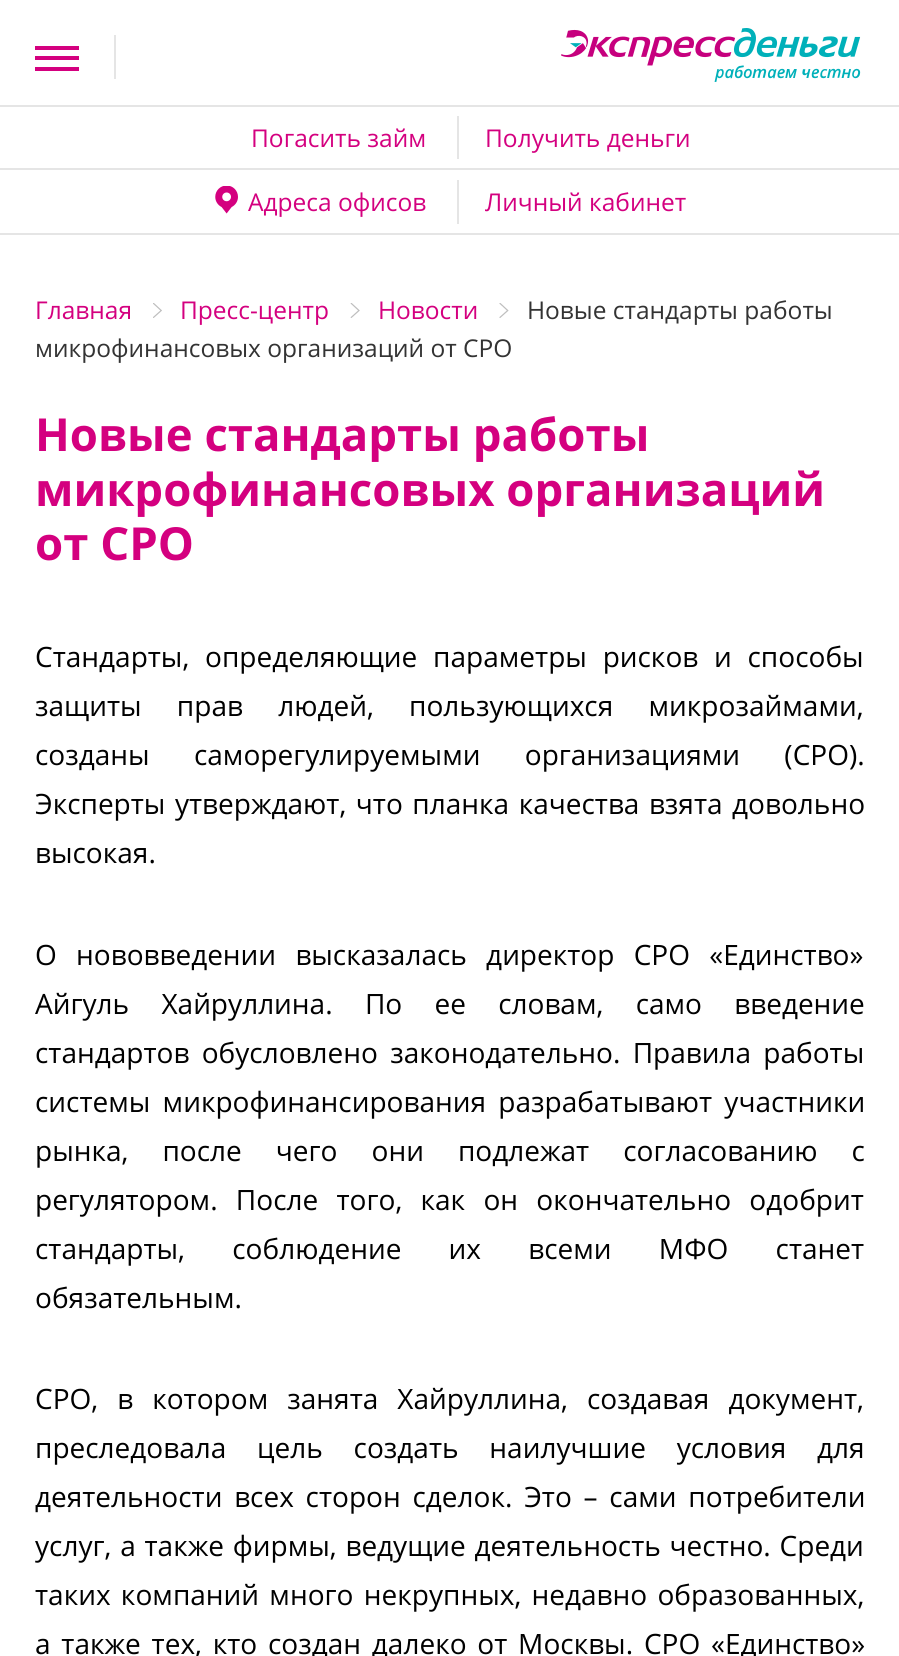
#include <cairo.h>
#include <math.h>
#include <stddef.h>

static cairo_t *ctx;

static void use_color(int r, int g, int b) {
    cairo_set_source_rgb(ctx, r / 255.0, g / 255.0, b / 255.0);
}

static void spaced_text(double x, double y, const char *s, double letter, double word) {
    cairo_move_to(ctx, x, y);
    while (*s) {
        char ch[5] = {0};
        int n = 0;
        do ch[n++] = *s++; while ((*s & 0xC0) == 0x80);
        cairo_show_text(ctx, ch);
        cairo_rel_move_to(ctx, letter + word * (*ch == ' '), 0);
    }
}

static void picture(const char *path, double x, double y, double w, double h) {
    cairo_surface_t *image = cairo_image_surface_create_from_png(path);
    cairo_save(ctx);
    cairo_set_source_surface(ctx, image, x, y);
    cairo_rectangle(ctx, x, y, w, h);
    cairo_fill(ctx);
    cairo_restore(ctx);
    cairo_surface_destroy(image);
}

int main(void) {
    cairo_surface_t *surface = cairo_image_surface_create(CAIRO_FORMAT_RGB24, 899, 1656);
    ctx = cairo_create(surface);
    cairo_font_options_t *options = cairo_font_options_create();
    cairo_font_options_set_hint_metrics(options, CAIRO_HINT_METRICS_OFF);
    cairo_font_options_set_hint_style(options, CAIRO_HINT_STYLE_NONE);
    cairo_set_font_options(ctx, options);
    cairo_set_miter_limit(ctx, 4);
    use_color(255, 255, 255);
    cairo_paint(ctx);
    use_color(229, 229, 229);
    cairo_rectangle(ctx, 0, 233, 899, 2);
    cairo_fill(ctx);
    picture("img1.png", 561, 28, 300, 54);
    use_color(212, 0, 127);
    cairo_rectangle(ctx, 35, 46, 44, 4);
    cairo_fill(ctx);
    cairo_rectangle(ctx, 35, 56, 44, 4);
    cairo_fill(ctx);
    cairo_rectangle(ctx, 35, 67, 44, 4);
    cairo_fill(ctx);
    use_color(229, 229, 229);
    cairo_rectangle(ctx, 114, 35, 2, 44);
    cairo_fill(ctx);
    cairo_rectangle(ctx, 0, 105, 899, 2);
    cairo_fill(ctx);
    cairo_select_font_face(ctx, "Open Sans", CAIRO_FONT_SLANT_NORMAL, CAIRO_FONT_WEIGHT_NORMAL);
    cairo_set_font_size(ctx, 24.5);
    use_color(212, 0, 127);
    cairo_move_to(ctx, 251, 147);
    cairo_show_text(ctx, "Погасить займ");
    use_color(229, 229, 229);
    cairo_rectangle(ctx, 457, 116, 2, 43);
    cairo_fill(ctx);
    use_color(212, 0, 127);
    cairo_move_to(ctx, 485, 147);
    cairo_show_text(ctx, "Получить деньги");
    use_color(229, 229, 229);
    cairo_rectangle(ctx, 0, 168, 899, 2);
    cairo_fill(ctx);
    picture("img2.png", 215, 186, 23, 28);
    use_color(212, 0, 127);
    cairo_move_to(ctx, 248, 211);
    cairo_show_text(ctx, "Адреса офисов");
    use_color(229, 229, 229);
    cairo_rectangle(ctx, 457, 180, 2, 44);
    cairo_fill(ctx);
    use_color(212, 0, 127);
    cairo_move_to(ctx, 485, 211);
    cairo_show_text(ctx, "Личный кабинет");
    cairo_move_to(ctx, 35, 319);
    cairo_show_text(ctx, "Главная");
    picture("img3.png", 153, 303, 9, 15);
    cairo_move_to(ctx, 180, 319);
    cairo_show_text(ctx, "Пресс-центр");
    picture("img4.png", 350, 303, 10, 15);
    cairo_move_to(ctx, 378, 319);
    cairo_show_text(ctx, "Новости");
    picture("img5.png", 499, 303, 10, 15);
    use_color(51, 51, 51);
    cairo_move_to(ctx, 527, 319);
    cairo_show_text(ctx, "Новые стандарты работы");
    cairo_move_to(ctx, 35, 357);
    cairo_show_text(ctx, "микрофинансовых организаций от СРО");
    cairo_select_font_face(ctx, "Open Sans", CAIRO_FONT_SLANT_NORMAL, CAIRO_FONT_WEIGHT_BOLD);
    cairo_set_font_size(ctx, 45.5);
    use_color(212, 0, 127);
    cairo_move_to(ctx, 35, 451);
    cairo_show_text(ctx, "Новые стандарты работы");
    cairo_move_to(ctx, 35, 506);
    cairo_show_text(ctx, "микрофинансовых организаций");
    cairo_move_to(ctx, 35, 560);
    cairo_show_text(ctx, "от СРО");
    cairo_select_font_face(ctx, "Open Sans", CAIRO_FONT_SLANT_NORMAL, CAIRO_FONT_WEIGHT_NORMAL);
    cairo_set_font_size(ctx, 28);
    use_color(0, 0, 0);
    spaced_text(35, 667, "Стандарты, определяющие параметры рисков и способы", 0, 8.5);
    spaced_text(35, 716, "защиты прав людей, пользующихся микрозаймами,", 0, 28);
    spaced_text(35, 765, "созданы саморегулируемыми организациями (СРО).", 0, 37);
    spaced_text(35, 814, "Эксперты утверждают, что планка качества взята довольно", 0, 2.25);
    cairo_move_to(ctx, 35, 863);
    cairo_show_text(ctx, "высокая.");
    spaced_text(35, 965, "О нововведении высказалась директор СРО «Единство»", 0, 12);
    spaced_text(35, 1014, "Айгуль Хайруллина. По ее словам, само введение", 0, 25);
    spaced_text(35, 1063, "стандартов обусловлено законодательно. Правила работы", 0, 5);
    spaced_text(35, 1112, "системы микрофинансирования разрабатывают участники", 0, 5);
    spaced_text(35, 1161, "рынка, после чего они подлежат согласованию с", 0, 26.75);
    spaced_text(35, 1210, "регулятором. После того, как он окончательно одобрит", 0, 11);
    spaced_text(35, 1259, "стандарты, соблюдение их всеми МФО станет", 0, 40);
    cairo_move_to(ctx, 35, 1308);
    cairo_show_text(ctx, "обязательным.");
    spaced_text(35, 1409, "СРО, в котором занята Хайруллина, создавая документ,", 0, 11.75);
    spaced_text(35, 1458, "преследовала цель создать наилучшие условия для", 0, 23.5);
    spaced_text(35, 1507, "деятельности всех сторон сделок. Это – сами потребители", 0, 4.5);
    spaced_text(35, 1556, "услуг, а также фирмы, ведущие деятельность честно. Среди", 0, 1.5);
    spaced_text(35, 1605, "таких компаний много некрупных, недавно образованных,", 0, 3);
    spaced_text(35, 1654, "а также тех, кто создан далеко от Москвы. СРО «Единство»", 0, 3.5);
    cairo_surface_write_to_png(surface, "result.png");
    cairo_font_options_destroy(options);
    cairo_destroy(ctx);
    cairo_surface_destroy(surface);
    return 0;
}
